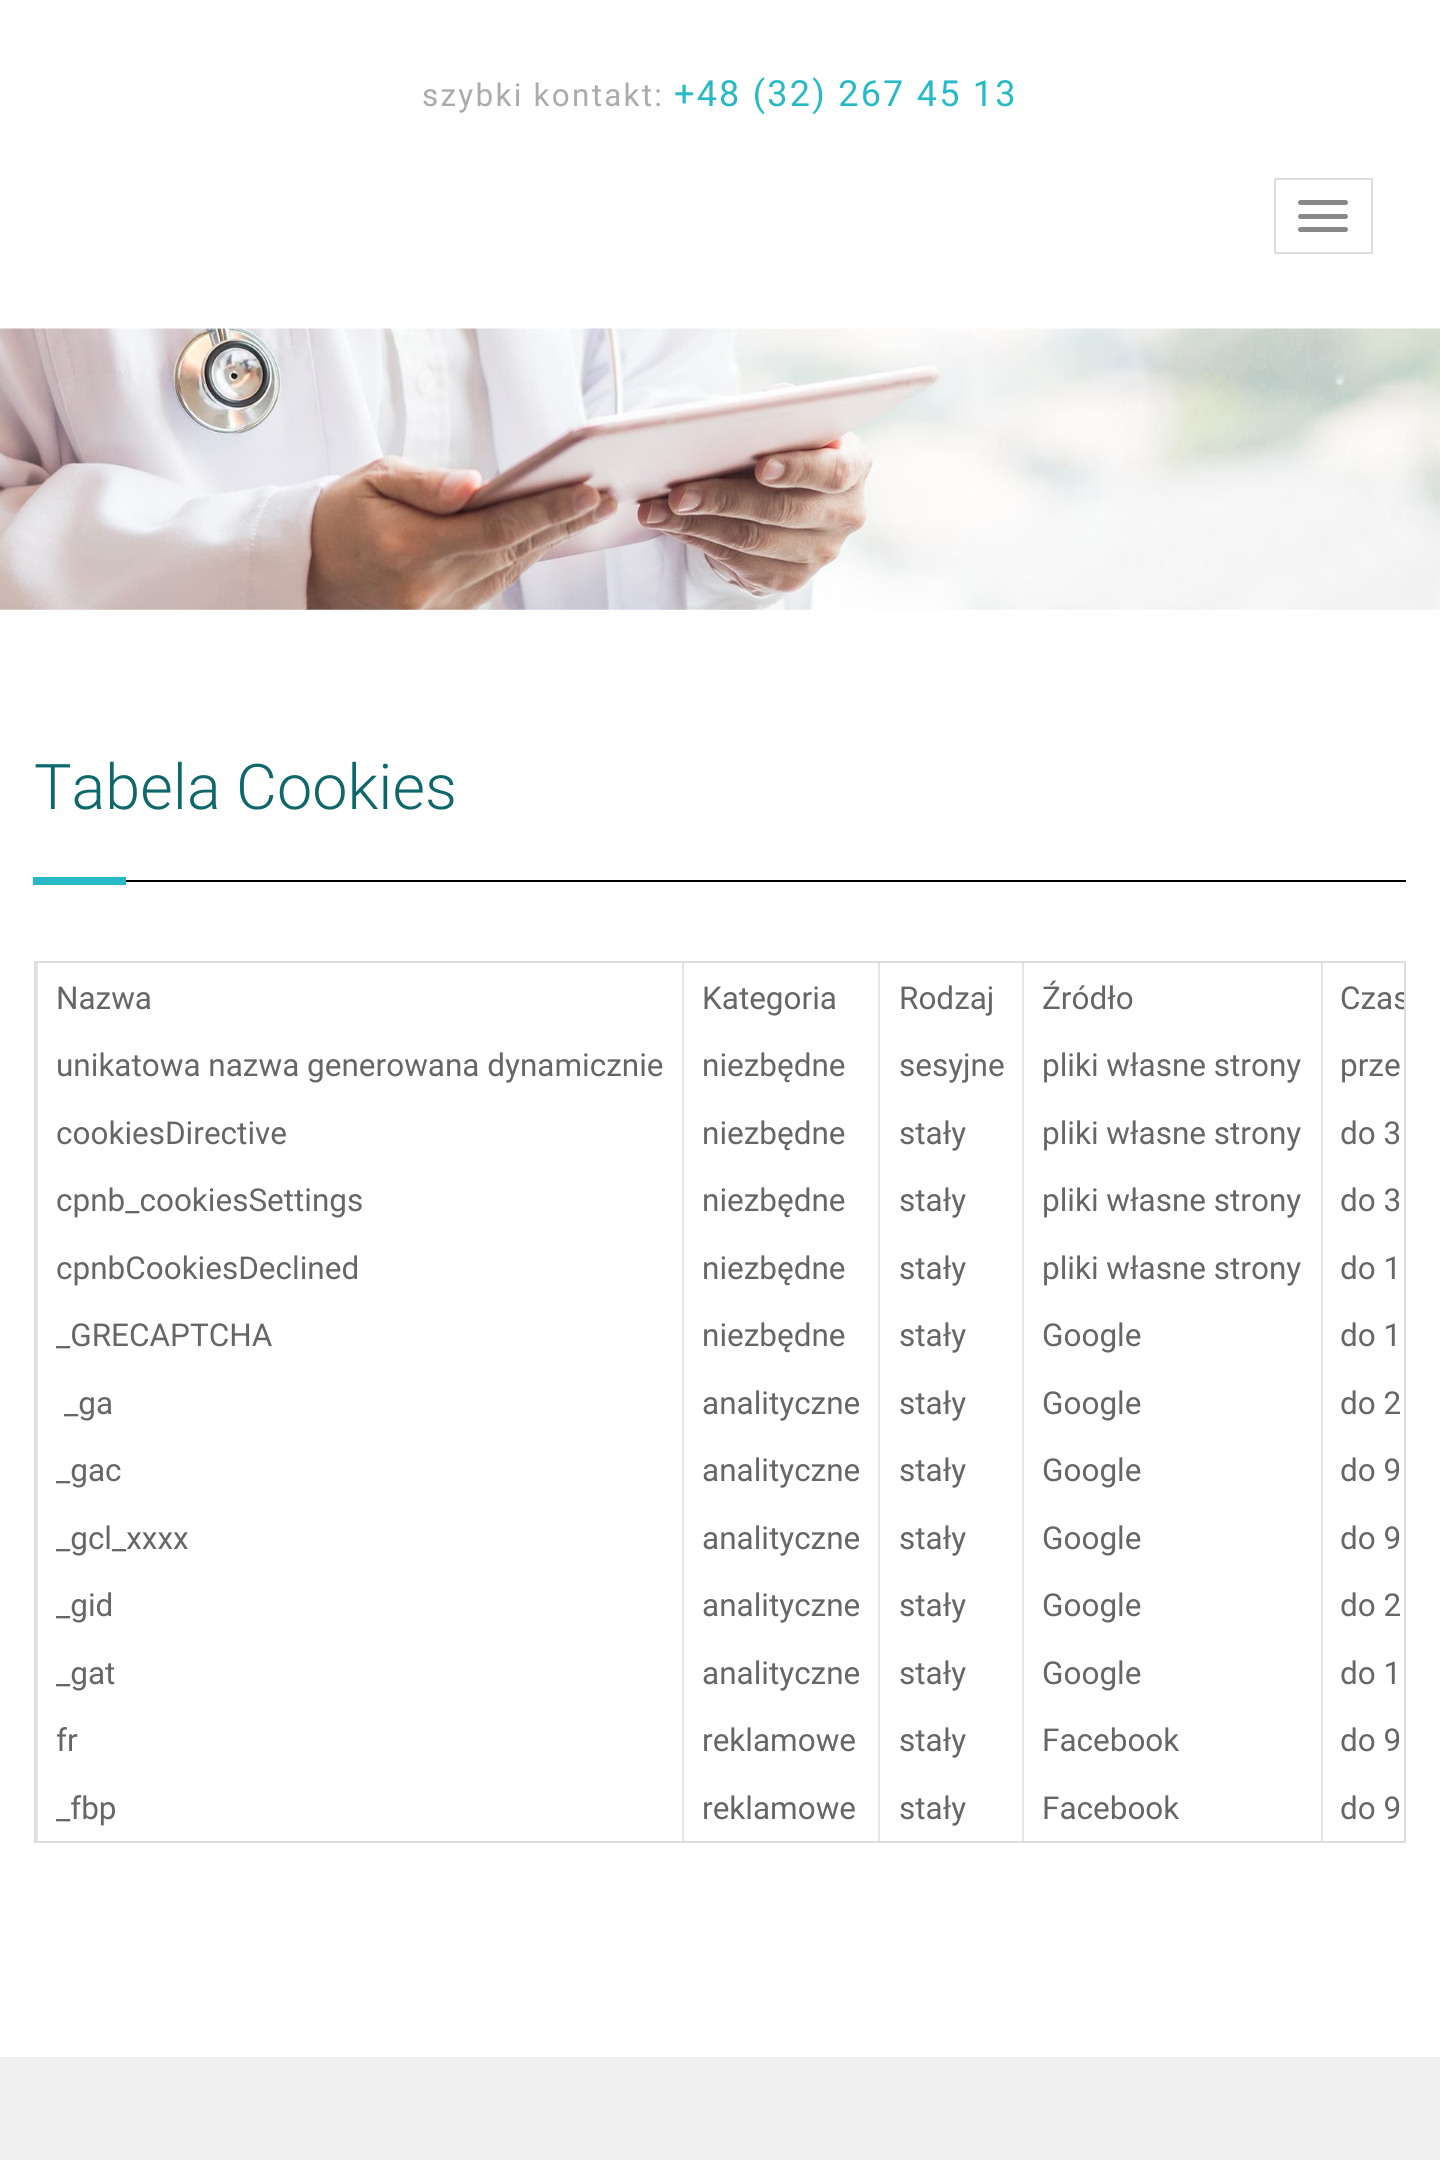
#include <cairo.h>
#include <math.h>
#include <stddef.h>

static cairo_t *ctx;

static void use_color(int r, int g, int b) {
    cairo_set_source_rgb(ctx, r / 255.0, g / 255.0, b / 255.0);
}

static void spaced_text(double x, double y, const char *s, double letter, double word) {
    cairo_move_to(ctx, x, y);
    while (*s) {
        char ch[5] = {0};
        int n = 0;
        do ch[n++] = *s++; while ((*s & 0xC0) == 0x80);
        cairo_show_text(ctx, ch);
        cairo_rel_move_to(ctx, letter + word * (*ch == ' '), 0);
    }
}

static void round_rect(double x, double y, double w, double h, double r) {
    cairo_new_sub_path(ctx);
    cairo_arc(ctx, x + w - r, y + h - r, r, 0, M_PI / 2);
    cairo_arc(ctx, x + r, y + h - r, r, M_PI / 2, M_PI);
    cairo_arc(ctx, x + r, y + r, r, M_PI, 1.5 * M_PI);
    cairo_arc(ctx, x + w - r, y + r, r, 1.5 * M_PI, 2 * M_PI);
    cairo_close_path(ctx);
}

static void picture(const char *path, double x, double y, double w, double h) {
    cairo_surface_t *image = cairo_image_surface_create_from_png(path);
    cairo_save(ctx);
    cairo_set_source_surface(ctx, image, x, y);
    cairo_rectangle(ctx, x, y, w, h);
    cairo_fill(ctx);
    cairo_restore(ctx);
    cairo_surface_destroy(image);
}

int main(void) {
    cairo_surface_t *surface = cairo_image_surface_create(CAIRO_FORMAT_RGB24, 1440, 2160);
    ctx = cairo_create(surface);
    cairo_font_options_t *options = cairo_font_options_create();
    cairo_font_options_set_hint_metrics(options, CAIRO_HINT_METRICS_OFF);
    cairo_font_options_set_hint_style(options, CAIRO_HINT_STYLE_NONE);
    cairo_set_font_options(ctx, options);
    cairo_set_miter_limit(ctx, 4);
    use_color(255, 255, 255);
    cairo_paint(ctx);
    cairo_select_font_face(ctx, "Roboto", CAIRO_FONT_SLANT_NORMAL, CAIRO_FONT_WEIGHT_NORMAL);
    cairo_set_font_size(ctx, 31.5);
    use_color(171, 171, 171);
    spaced_text(422, 106, "szybki kontakt:", 2.25, 0);
    cairo_set_font_size(ctx, 36);
    use_color(39, 185, 198);
    spaced_text(674, 106, "+48 (32) 267 45 13", 2.25, 0);
    cairo_rectangle(ctx, 1275, 179, 97, 74);
    use_color(221, 221, 221);
    cairo_stroke(ctx);
    use_color(136, 136, 136);
    round_rect(1298, 200, 50, 5, 2.5);
    cairo_fill(ctx);
    round_rect(1298, 214, 50, 5, 2.5);
    cairo_fill(ctx);
    round_rect(1298, 227, 50, 5, 2.5);
    cairo_fill(ctx);
    picture("img1.png", 0, 328, 1440, 282);
    use_color(0, 0, 0);
    cairo_rectangle(ctx, 126, 880, 1280, 2);
    cairo_fill(ctx);
    cairo_select_font_face(ctx, "Roboto Light", CAIRO_FONT_SLANT_NORMAL, CAIRO_FONT_WEIGHT_NORMAL);
    cairo_set_font_size(ctx, 63);
    use_color(14, 104, 107);
    cairo_move_to(ctx, 34, 809);
    cairo_show_text(ctx, "Tabela Cookies");
    use_color(39, 185, 198);
    cairo_rectangle(ctx, 33, 877, 93, 8);
    cairo_fill(ctx);
    cairo_rectangle(ctx, 35, 962, 1370, 880);
    use_color(221, 221, 221);
    cairo_stroke(ctx);
    cairo_select_font_face(ctx, "Roboto", CAIRO_FONT_SLANT_NORMAL, CAIRO_FONT_WEIGHT_NORMAL);
    cairo_set_font_size(ctx, 31.5);
    use_color(102, 102, 102);
    cairo_move_to(ctx, 56, 1009);
    cairo_show_text(ctx, "Nazwa");
    cairo_move_to(ctx, 702, 1009);
    cairo_show_text(ctx, "Kategoria");
    cairo_move_to(ctx, 899, 1009);
    cairo_show_text(ctx, "Rodzaj");
    cairo_move_to(ctx, 1042, 1009);
    cairo_show_text(ctx, "Źródło");
    cairo_save(ctx);
    cairo_rectangle(ctx, 36, 963, 1368, 878);
    cairo_clip(ctx);
    cairo_move_to(ctx, 1340, 1009);
    cairo_show_text(ctx, "Czas");
    cairo_restore(ctx);
    cairo_move_to(ctx, 56, 1076);
    cairo_show_text(ctx, "unikatowa nazwa generowana dynamicznie");
    cairo_move_to(ctx, 702, 1076);
    cairo_show_text(ctx, "niezbędne");
    cairo_move_to(ctx, 899, 1076);
    cairo_show_text(ctx, "sesyjne");
    cairo_move_to(ctx, 1042, 1076);
    cairo_show_text(ctx, "pliki własne strony");
    cairo_move_to(ctx, 1340, 1076);
    cairo_show_text(ctx, "prze");
    cairo_move_to(ctx, 56, 1144);
    cairo_show_text(ctx, "cookiesDirective");
    cairo_move_to(ctx, 702, 1144);
    cairo_show_text(ctx, "niezbędne");
    cairo_move_to(ctx, 899, 1144);
    cairo_show_text(ctx, "stały");
    cairo_move_to(ctx, 1042, 1144);
    cairo_show_text(ctx, "pliki własne strony");
    cairo_move_to(ctx, 1340, 1144);
    cairo_show_text(ctx, "do 3");
    cairo_move_to(ctx, 56, 1211);
    cairo_show_text(ctx, "cpnb_cookiesSettings");
    cairo_move_to(ctx, 702, 1211);
    cairo_show_text(ctx, "niezbędne");
    cairo_move_to(ctx, 899, 1211);
    cairo_show_text(ctx, "stały");
    cairo_move_to(ctx, 1042, 1211);
    cairo_show_text(ctx, "pliki własne strony");
    cairo_move_to(ctx, 1340, 1211);
    cairo_show_text(ctx, "do 3");
    cairo_move_to(ctx, 56, 1279);
    cairo_show_text(ctx, "cpnbCookiesDeclined");
    cairo_move_to(ctx, 702, 1279);
    cairo_show_text(ctx, "niezbędne");
    cairo_move_to(ctx, 899, 1279);
    cairo_show_text(ctx, "stały");
    cairo_move_to(ctx, 1042, 1279);
    cairo_show_text(ctx, "pliki własne strony");
    cairo_move_to(ctx, 1340, 1279);
    cairo_show_text(ctx, "do 1");
    cairo_move_to(ctx, 56, 1346);
    cairo_show_text(ctx, "_GRECAPTCHA");
    cairo_move_to(ctx, 702, 1346);
    cairo_show_text(ctx, "niezbędne");
    cairo_move_to(ctx, 899, 1346);
    cairo_show_text(ctx, "stały");
    cairo_move_to(ctx, 1042, 1346);
    cairo_show_text(ctx, "Google");
    cairo_move_to(ctx, 1340, 1346);
    cairo_show_text(ctx, "do 1");
    cairo_move_to(ctx, 64, 1414);
    cairo_show_text(ctx, "_ga");
    cairo_move_to(ctx, 702, 1414);
    cairo_show_text(ctx, "analityczne");
    cairo_move_to(ctx, 899, 1414);
    cairo_show_text(ctx, "stały");
    cairo_move_to(ctx, 1042, 1414);
    cairo_show_text(ctx, "Google");
    cairo_move_to(ctx, 1340, 1414);
    cairo_show_text(ctx, "do 2");
    cairo_move_to(ctx, 56, 1481);
    cairo_show_text(ctx, "_gac");
    cairo_move_to(ctx, 702, 1481);
    cairo_show_text(ctx, "analityczne");
    cairo_move_to(ctx, 899, 1481);
    cairo_show_text(ctx, "stały");
    cairo_move_to(ctx, 1042, 1481);
    cairo_show_text(ctx, "Google");
    cairo_move_to(ctx, 1340, 1481);
    cairo_show_text(ctx, "do 9");
    cairo_move_to(ctx, 56, 1549);
    cairo_show_text(ctx, "_gcl_xxxx");
    cairo_move_to(ctx, 702, 1549);
    cairo_show_text(ctx, "analityczne");
    cairo_move_to(ctx, 899, 1549);
    cairo_show_text(ctx, "stały");
    cairo_move_to(ctx, 1042, 1549);
    cairo_show_text(ctx, "Google");
    cairo_move_to(ctx, 1340, 1549);
    cairo_show_text(ctx, "do 9");
    cairo_move_to(ctx, 56, 1616);
    cairo_show_text(ctx, "_gid");
    cairo_move_to(ctx, 702, 1616);
    cairo_show_text(ctx, "analityczne");
    cairo_move_to(ctx, 899, 1616);
    cairo_show_text(ctx, "stały");
    cairo_move_to(ctx, 1042, 1616);
    cairo_show_text(ctx, "Google");
    cairo_move_to(ctx, 1340, 1616);
    cairo_show_text(ctx, "do 2");
    cairo_move_to(ctx, 56, 1684);
    cairo_show_text(ctx, "_gat");
    cairo_move_to(ctx, 702, 1684);
    cairo_show_text(ctx, "analityczne");
    cairo_move_to(ctx, 899, 1684);
    cairo_show_text(ctx, "stały");
    cairo_move_to(ctx, 1042, 1684);
    cairo_show_text(ctx, "Google");
    cairo_move_to(ctx, 1340, 1684);
    cairo_show_text(ctx, "do 1");
    cairo_move_to(ctx, 56, 1751);
    cairo_show_text(ctx, "fr");
    cairo_move_to(ctx, 702, 1751);
    cairo_show_text(ctx, "reklamowe");
    cairo_move_to(ctx, 899, 1751);
    cairo_show_text(ctx, "stały");
    cairo_move_to(ctx, 1042, 1751);
    cairo_show_text(ctx, "Facebook");
    cairo_move_to(ctx, 1340, 1751);
    cairo_show_text(ctx, "do 9");
    use_color(229, 229, 229);
    cairo_rectangle(ctx, 36, 963, 2, 878);
    cairo_fill(ctx);
    use_color(102, 102, 102);
    cairo_move_to(ctx, 56, 1819);
    cairo_show_text(ctx, "_fbp");
    use_color(229, 229, 229);
    cairo_rectangle(ctx, 682, 963, 2, 878);
    cairo_fill(ctx);
    use_color(102, 102, 102);
    cairo_move_to(ctx, 702, 1819);
    cairo_show_text(ctx, "reklamowe");
    use_color(229, 229, 229);
    cairo_rectangle(ctx, 878, 963, 2, 878);
    cairo_fill(ctx);
    use_color(102, 102, 102);
    cairo_move_to(ctx, 899, 1819);
    cairo_show_text(ctx, "stały");
    use_color(229, 229, 229);
    cairo_rectangle(ctx, 1022, 963, 2, 878);
    cairo_fill(ctx);
    use_color(102, 102, 102);
    cairo_move_to(ctx, 1042, 1819);
    cairo_show_text(ctx, "Facebook");
    use_color(229, 229, 229);
    cairo_rectangle(ctx, 1321, 963, 2, 878);
    cairo_fill(ctx);
    use_color(102, 102, 102);
    cairo_move_to(ctx, 1340, 1819);
    cairo_show_text(ctx, "do 9");
    use_color(240, 240, 240);
    cairo_rectangle(ctx, 0, 2057, 1440, 103);
    cairo_fill(ctx);
    cairo_surface_write_to_png(surface, "result.png");
    cairo_font_options_destroy(options);
    cairo_destroy(ctx);
    cairo_surface_destroy(surface);
    return 0;
}
